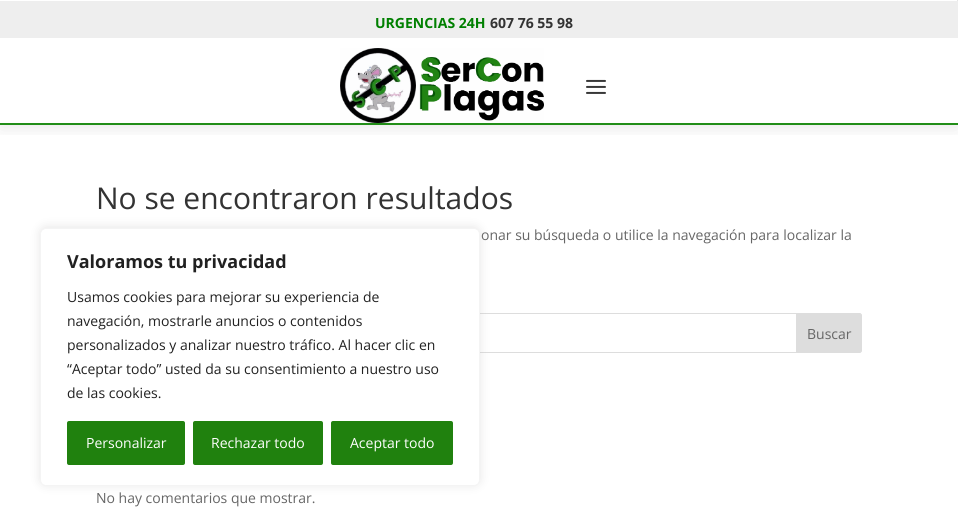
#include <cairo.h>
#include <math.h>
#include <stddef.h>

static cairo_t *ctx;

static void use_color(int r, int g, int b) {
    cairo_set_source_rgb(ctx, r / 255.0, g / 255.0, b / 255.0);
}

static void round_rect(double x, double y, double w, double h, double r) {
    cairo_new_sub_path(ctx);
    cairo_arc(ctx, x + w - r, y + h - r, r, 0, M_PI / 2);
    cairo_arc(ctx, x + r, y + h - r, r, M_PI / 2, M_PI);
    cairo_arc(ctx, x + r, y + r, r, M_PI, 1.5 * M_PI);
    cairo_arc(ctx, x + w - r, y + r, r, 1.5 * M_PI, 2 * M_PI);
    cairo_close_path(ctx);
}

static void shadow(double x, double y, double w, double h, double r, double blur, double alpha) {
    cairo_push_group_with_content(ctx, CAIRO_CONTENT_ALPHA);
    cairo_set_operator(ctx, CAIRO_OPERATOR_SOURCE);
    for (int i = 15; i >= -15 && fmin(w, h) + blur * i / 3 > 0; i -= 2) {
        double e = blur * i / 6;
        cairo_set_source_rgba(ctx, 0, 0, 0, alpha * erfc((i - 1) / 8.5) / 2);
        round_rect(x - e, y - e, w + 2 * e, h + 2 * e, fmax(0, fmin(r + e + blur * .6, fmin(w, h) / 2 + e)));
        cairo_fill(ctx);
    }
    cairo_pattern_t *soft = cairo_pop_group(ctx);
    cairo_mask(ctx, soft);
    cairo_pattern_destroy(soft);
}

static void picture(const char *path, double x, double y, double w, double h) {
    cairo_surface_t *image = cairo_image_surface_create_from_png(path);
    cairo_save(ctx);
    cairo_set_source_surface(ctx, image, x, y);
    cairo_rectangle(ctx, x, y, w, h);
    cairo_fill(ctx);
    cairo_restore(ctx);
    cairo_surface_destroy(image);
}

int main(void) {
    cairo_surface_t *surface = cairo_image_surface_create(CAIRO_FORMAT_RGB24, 958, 526);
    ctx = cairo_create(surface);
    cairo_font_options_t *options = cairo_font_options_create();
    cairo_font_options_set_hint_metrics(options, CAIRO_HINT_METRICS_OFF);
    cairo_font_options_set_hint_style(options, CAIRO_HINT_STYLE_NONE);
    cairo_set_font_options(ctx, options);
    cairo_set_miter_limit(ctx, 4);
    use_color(255, 255, 255);
    cairo_paint(ctx);
    cairo_save(ctx);
    cairo_rectangle(ctx, 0, 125, 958, 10);
    cairo_clip(ctx);
    use_color(0, 0, 0);
    shadow(0, 2, 958, 125, 0, 9, 0.1);
    cairo_restore(ctx);
    use_color(34, 142, 24);
    cairo_rectangle(ctx, 0, 123, 958, 2);
    cairo_fill(ctx);
    use_color(230, 230, 230);
    cairo_rectangle(ctx, 957, 0, 1, 1);
    cairo_fill(ctx);
    use_color(238, 238, 238);
    cairo_rectangle(ctx, 0, 1, 958, 37);
    cairo_fill(ctx);
    cairo_select_font_face(ctx, "Open Sans", CAIRO_FONT_SLANT_NORMAL, CAIRO_FONT_WEIGHT_BOLD);
    cairo_set_font_size(ctx, 14);
    use_color(0, 128, 0);
    cairo_move_to(ctx, 375, 28);
    cairo_show_text(ctx, "URGENCIAS 24H");
    use_color(51, 51, 51);
    cairo_move_to(ctx, 490, 28);
    cairo_show_text(ctx, "607 76 55 98");
    picture("img1.png", 340, 48, 204, 75);
    picture("img2.png", 586, 79, 20, 15);
    cairo_select_font_face(ctx, "Open Sans", CAIRO_FONT_SLANT_NORMAL, CAIRO_FONT_WEIGHT_NORMAL);
    cairo_set_font_size(ctx, 30);
    cairo_move_to(ctx, 96, 209);
    cairo_show_text(ctx, "No se encontraron resultados");
    cairo_set_font_size(ctx, 14);
    use_color(102, 102, 102);
    cairo_move_to(ctx, 481, 240);
    cairo_show_text(ctx, "onar su búsqueda o utilice la navegación para localizar la");
    round_rect(96.5, 313.5, 765, 39, 2.5);
    use_color(221, 221, 221);
    cairo_set_line_width(ctx, 1);
    cairo_stroke(ctx);
    cairo_new_path(ctx);
    cairo_move_to(ctx, 796.5, 313.5);
    cairo_line_to(ctx, 859, 313.5);
    cairo_curve_to(ctx, 860.5, 313.5, 861.5, 314.5, 861.5, 316);
    cairo_line_to(ctx, 861.5, 350);
    cairo_curve_to(ctx, 861.5, 351.5, 860.5, 352.5, 859, 352.5);
    cairo_line_to(ctx, 796.5, 352.5);
    cairo_close_path(ctx);
    cairo_fill_preserve(ctx);
    cairo_stroke(ctx);
    use_color(102, 102, 102);
    cairo_move_to(ctx, 807, 339);
    cairo_show_text(ctx, "Buscar");
    cairo_move_to(ctx, 96, 503);
    cairo_show_text(ctx, "No hay comentarios que mostrar.");
    use_color(172, 171, 171);
    shadow(40, 227, 440, 258, 6, 5, 0.3);
    use_color(255, 255, 255);
    round_rect(40.5, 228.5, 439, 257, 5.5);
    cairo_fill_preserve(ctx);
    use_color(244, 244, 244);
    cairo_stroke(ctx);
    cairo_select_font_face(ctx, "Open Sans", CAIRO_FONT_SLANT_NORMAL, CAIRO_FONT_WEIGHT_BOLD);
    cairo_set_font_size(ctx, 18);
    use_color(33, 33, 33);
    cairo_move_to(ctx, 67, 268);
    cairo_show_text(ctx, "Valoramos tu privacidad");
    cairo_select_font_face(ctx, "Open Sans", CAIRO_FONT_SLANT_NORMAL, CAIRO_FONT_WEIGHT_NORMAL);
    cairo_set_font_size(ctx, 14);
    cairo_move_to(ctx, 67, 302);
    cairo_show_text(ctx, "Usamos cookies para mejorar su experiencia de");
    cairo_move_to(ctx, 67, 326);
    cairo_show_text(ctx, "navegación, mostrarle anuncios o contenidos");
    cairo_move_to(ctx, 67, 350);
    cairo_show_text(ctx, "personalizados y analizar nuestro tráfico. Al hacer clic en");
    cairo_move_to(ctx, 67, 374);
    cairo_show_text(ctx, "“Aceptar todo” usted da su consentimiento a nuestro uso");
    cairo_move_to(ctx, 67, 398);
    cairo_show_text(ctx, "de las cookies.");
    use_color(32, 129, 14);
    round_rect(68, 422, 116, 42, 1);
    cairo_fill_preserve(ctx);
    cairo_set_line_width(ctx, 2);
    cairo_stroke(ctx);
    use_color(255, 255, 255);
    cairo_move_to(ctx, 86, 448);
    cairo_show_text(ctx, "Personalizar");
    use_color(32, 129, 14);
    round_rect(194, 422, 128, 42, 1);
    cairo_fill_preserve(ctx);
    cairo_stroke(ctx);
    use_color(255, 255, 255);
    cairo_move_to(ctx, 211, 448);
    cairo_show_text(ctx, "Rechazar todo");
    use_color(32, 129, 14);
    round_rect(332, 422, 120, 42, 1);
    cairo_fill_preserve(ctx);
    cairo_stroke(ctx);
    use_color(255, 255, 255);
    cairo_move_to(ctx, 350, 448);
    cairo_show_text(ctx, "Aceptar todo");
    cairo_surface_write_to_png(surface, "result.png");
    cairo_font_options_destroy(options);
    cairo_destroy(ctx);
    cairo_surface_destroy(surface);
    return 0;
}
